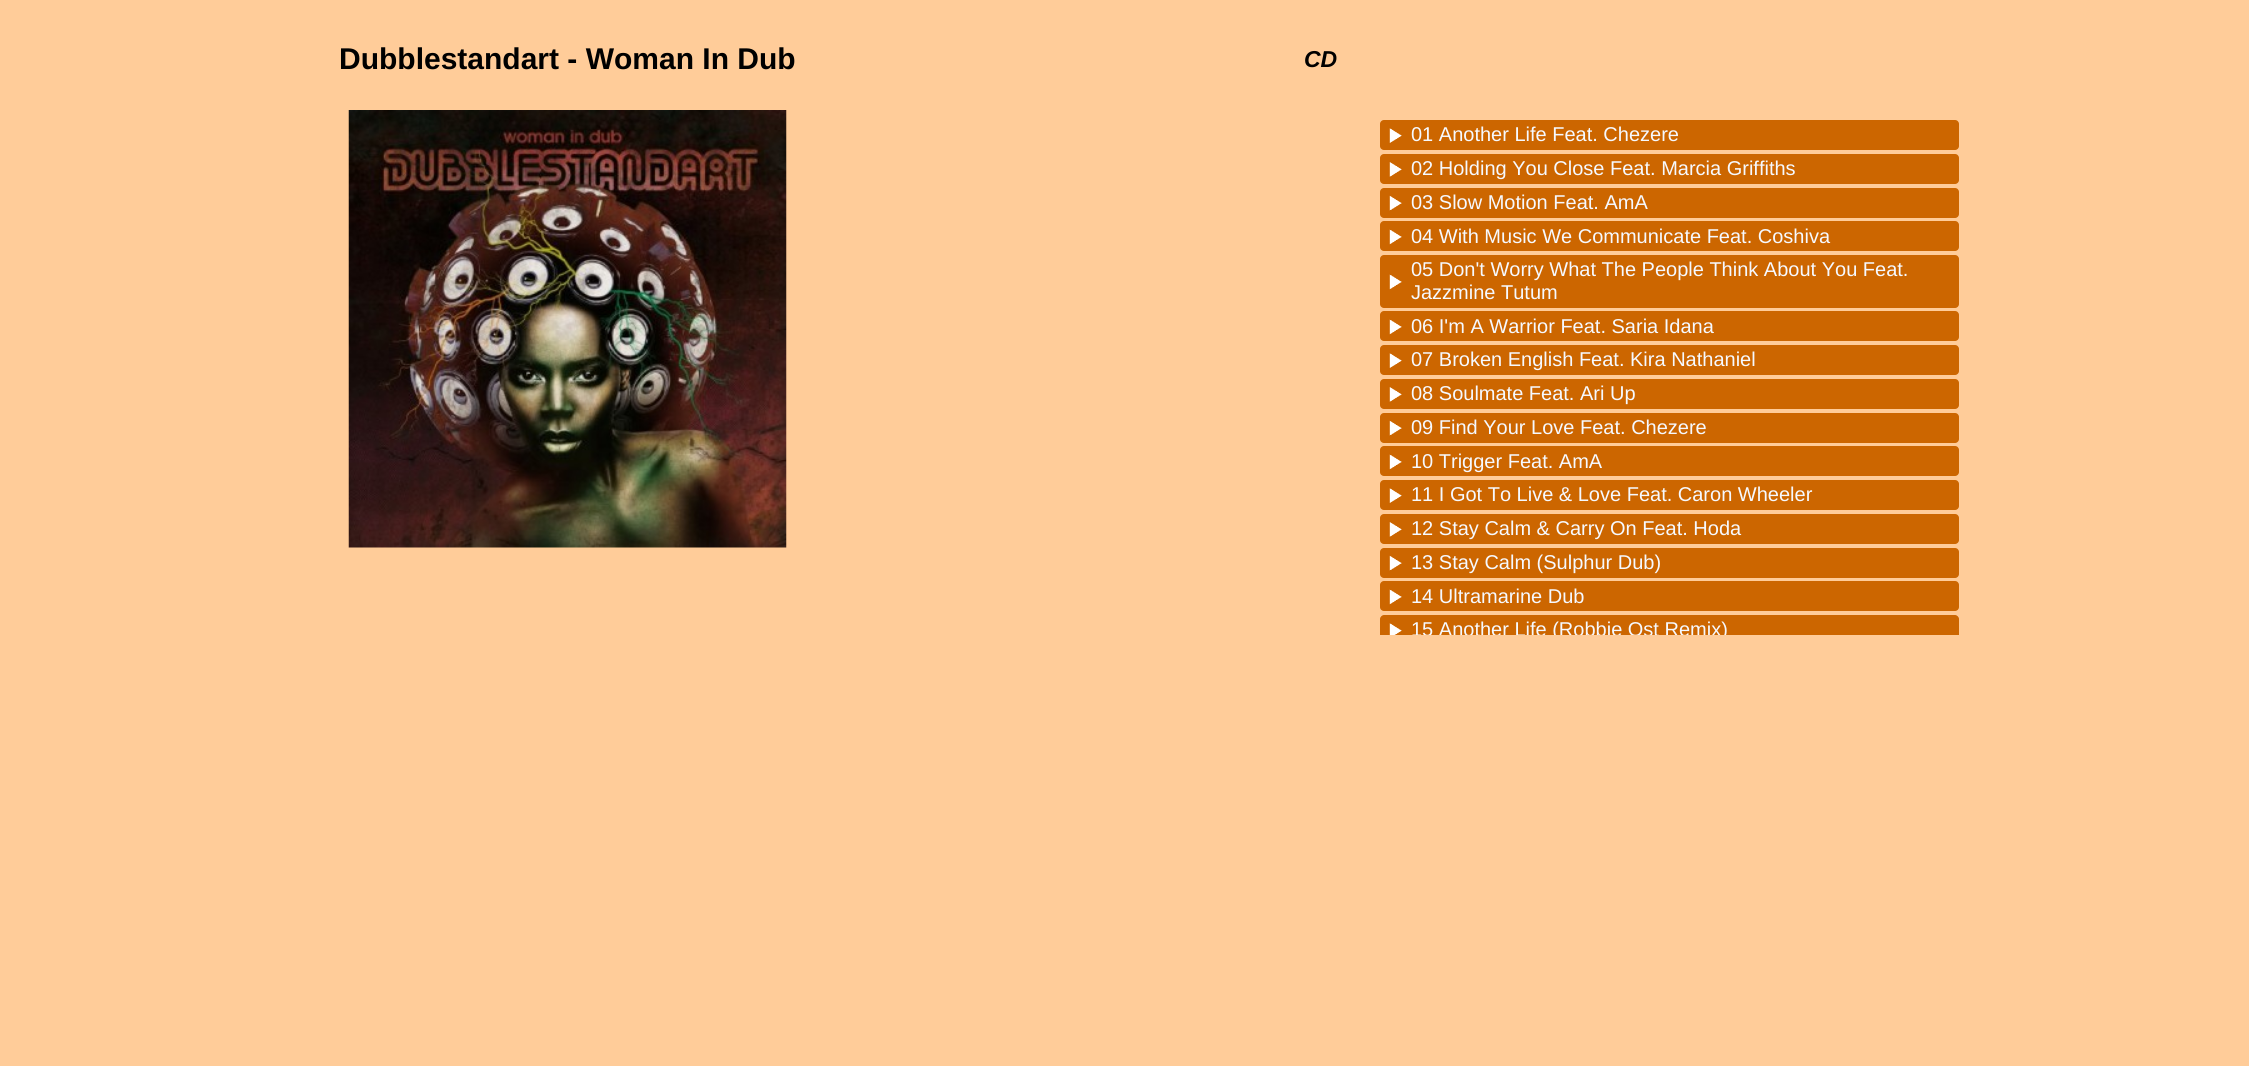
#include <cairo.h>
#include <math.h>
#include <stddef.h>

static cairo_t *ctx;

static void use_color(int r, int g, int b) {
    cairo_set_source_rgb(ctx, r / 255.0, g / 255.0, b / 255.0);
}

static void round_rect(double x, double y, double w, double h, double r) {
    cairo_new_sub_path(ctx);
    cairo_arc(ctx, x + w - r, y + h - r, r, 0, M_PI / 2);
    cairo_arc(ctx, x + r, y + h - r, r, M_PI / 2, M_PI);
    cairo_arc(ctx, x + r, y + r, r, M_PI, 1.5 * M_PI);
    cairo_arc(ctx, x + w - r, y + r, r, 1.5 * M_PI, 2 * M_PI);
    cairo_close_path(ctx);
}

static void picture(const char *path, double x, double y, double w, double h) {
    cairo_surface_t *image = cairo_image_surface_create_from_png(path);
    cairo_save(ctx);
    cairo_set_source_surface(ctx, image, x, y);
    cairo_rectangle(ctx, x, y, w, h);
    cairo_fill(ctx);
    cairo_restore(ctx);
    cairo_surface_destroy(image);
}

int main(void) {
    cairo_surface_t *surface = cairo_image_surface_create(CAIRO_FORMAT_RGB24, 2249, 1066);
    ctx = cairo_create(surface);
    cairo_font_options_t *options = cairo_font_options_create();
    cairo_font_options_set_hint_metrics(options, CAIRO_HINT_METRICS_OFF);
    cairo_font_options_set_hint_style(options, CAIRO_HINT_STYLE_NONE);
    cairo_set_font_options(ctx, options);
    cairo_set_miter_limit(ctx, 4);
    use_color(255, 204, 153);
    cairo_paint(ctx);
    cairo_select_font_face(ctx, "Liberation Sans", CAIRO_FONT_SLANT_NORMAL, CAIRO_FONT_WEIGHT_BOLD);
    cairo_set_font_size(ctx, 30);
    use_color(0, 0, 0);
    cairo_move_to(ctx, 339, 69);
    cairo_show_text(ctx, "Dubblestandart - Woman In Dub");
    cairo_select_font_face(ctx, "Liberation Sans", CAIRO_FONT_SLANT_ITALIC, CAIRO_FONT_WEIGHT_BOLD);
    cairo_set_font_size(ctx, 23);
    cairo_move_to(ctx, 1304, 67);
    cairo_show_text(ctx, "CD");
    picture("img1.png", 348, 110, 439, 438);
    use_color(204, 102, 0);
    round_rect(1380, 120, 579, 30, 4);
    cairo_fill(ctx);
    picture("img2.png", 1389, 128, 13, 15);
    cairo_select_font_face(ctx, "Liberation Sans", CAIRO_FONT_SLANT_NORMAL, CAIRO_FONT_WEIGHT_NORMAL);
    cairo_set_font_size(ctx, 20);
    use_color(246, 249, 255);
    cairo_move_to(ctx, 1411, 141);
    cairo_show_text(ctx, "01 Another Life Feat. Chezere");
    use_color(204, 102, 0);
    round_rect(1380, 154, 579, 30, 4);
    cairo_fill(ctx);
    picture("img3.png", 1389, 162, 13, 15);
    use_color(246, 249, 255);
    cairo_move_to(ctx, 1411, 175);
    cairo_show_text(ctx, "02 Holding You Close Feat. Marcia Griffiths");
    use_color(204, 102, 0);
    round_rect(1380, 188, 579, 30, 4);
    cairo_fill(ctx);
    picture("img4.png", 1389, 195, 13, 16);
    use_color(246, 249, 255);
    cairo_move_to(ctx, 1411, 209);
    cairo_show_text(ctx, "03 Slow Motion Feat. AmA");
    use_color(204, 102, 0);
    round_rect(1380, 221, 579, 30, 4);
    cairo_fill(ctx);
    picture("img5.png", 1389, 229, 13, 16);
    use_color(246, 249, 255);
    cairo_move_to(ctx, 1411, 243);
    cairo_show_text(ctx, "04 With Music We Communicate Feat. Coshiva");
    use_color(204, 102, 0);
    round_rect(1380, 255, 579, 53, 4);
    cairo_fill(ctx);
    picture("img5.png", 1389, 274, 13, 16);
    use_color(246, 249, 255);
    cairo_move_to(ctx, 1411, 276);
    cairo_show_text(ctx, "05 Don't Worry What The People Think About You Feat.");
    cairo_move_to(ctx, 1411, 299);
    cairo_show_text(ctx, "Jazzmine Tutum");
    use_color(204, 102, 0);
    round_rect(1380, 311, 579, 30, 4);
    cairo_fill(ctx);
    picture("img5.png", 1389, 319, 13, 16);
    use_color(246, 249, 255);
    cairo_move_to(ctx, 1411, 333);
    cairo_show_text(ctx, "06 I'm A Warrior Feat. Saria Idana");
    use_color(204, 102, 0);
    round_rect(1380, 345, 579, 30, 4);
    cairo_fill(ctx);
    picture("img2.png", 1389, 353, 13, 15);
    use_color(246, 249, 255);
    cairo_move_to(ctx, 1411, 366);
    cairo_show_text(ctx, "07 Broken English Feat. Kira Nathaniel");
    use_color(204, 102, 0);
    round_rect(1380, 379, 579, 30, 4);
    cairo_fill(ctx);
    picture("img6.png", 1389, 387, 13, 15);
    use_color(246, 249, 255);
    cairo_move_to(ctx, 1411, 400);
    cairo_show_text(ctx, "08 Soulmate Feat. Ari Up");
    use_color(204, 102, 0);
    round_rect(1380, 413, 579, 30, 4);
    cairo_fill(ctx);
    picture("img4.png", 1389, 420, 13, 16);
    use_color(246, 249, 255);
    cairo_move_to(ctx, 1411, 434);
    cairo_show_text(ctx, "09 Find Your Love Feat. Chezere");
    use_color(204, 102, 0);
    round_rect(1380, 446, 579, 30, 4);
    cairo_fill(ctx);
    picture("img5.png", 1389, 454, 13, 16);
    use_color(246, 249, 255);
    cairo_move_to(ctx, 1411, 468);
    cairo_show_text(ctx, "10 Trigger Feat. AmA");
    use_color(204, 102, 0);
    round_rect(1380, 480, 579, 30, 4);
    cairo_fill(ctx);
    picture("img2.png", 1389, 488, 13, 15);
    use_color(246, 249, 255);
    cairo_move_to(ctx, 1411, 501);
    cairo_show_text(ctx, "11 I Got To Live & Love Feat. Caron Wheeler");
    use_color(204, 102, 0);
    round_rect(1380, 514, 579, 30, 4);
    cairo_fill(ctx);
    picture("img3.png", 1389, 522, 13, 15);
    use_color(246, 249, 255);
    cairo_move_to(ctx, 1411, 535);
    cairo_show_text(ctx, "12 Stay Calm & Carry On Feat. Hoda");
    use_color(204, 102, 0);
    round_rect(1380, 548, 579, 30, 4);
    cairo_fill(ctx);
    picture("img4.png", 1389, 555, 13, 16);
    use_color(246, 249, 255);
    cairo_move_to(ctx, 1411, 569);
    cairo_show_text(ctx, "13 Stay Calm (Sulphur Dub)");
    use_color(204, 102, 0);
    round_rect(1380, 581, 579, 30, 4);
    cairo_fill(ctx);
    picture("img5.png", 1389, 589, 13, 16);
    use_color(246, 249, 255);
    cairo_move_to(ctx, 1411, 603);
    cairo_show_text(ctx, "14 Ultramarine Dub");
    use_color(204, 102, 0);
    cairo_new_path(ctx);
    cairo_move_to(ctx, 1384, 615);
    cairo_line_to(ctx, 1955, 615);
    cairo_curve_to(ctx, 1957, 615, 1959, 617, 1959, 619);
    cairo_line_to(ctx, 1959, 635);
    cairo_line_to(ctx, 1380, 635);
    cairo_line_to(ctx, 1380, 619);
    cairo_curve_to(ctx, 1380, 617, 1382, 615, 1384, 615);
    cairo_close_path(ctx);
    cairo_fill(ctx);
    picture("img7.png", 1389, 623, 13, 12);
    cairo_save(ctx);
    cairo_rectangle(ctx, 1370, 110, 625, 525);
    cairo_clip(ctx);
    use_color(246, 249, 255);
    cairo_move_to(ctx, 1411, 636);
    cairo_show_text(ctx, "15 Another Life (Robbie Ost Remix)");
    cairo_restore(ctx);
    cairo_surface_write_to_png(surface, "result.png");
    cairo_font_options_destroy(options);
    cairo_destroy(ctx);
    cairo_surface_destroy(surface);
    return 0;
}
